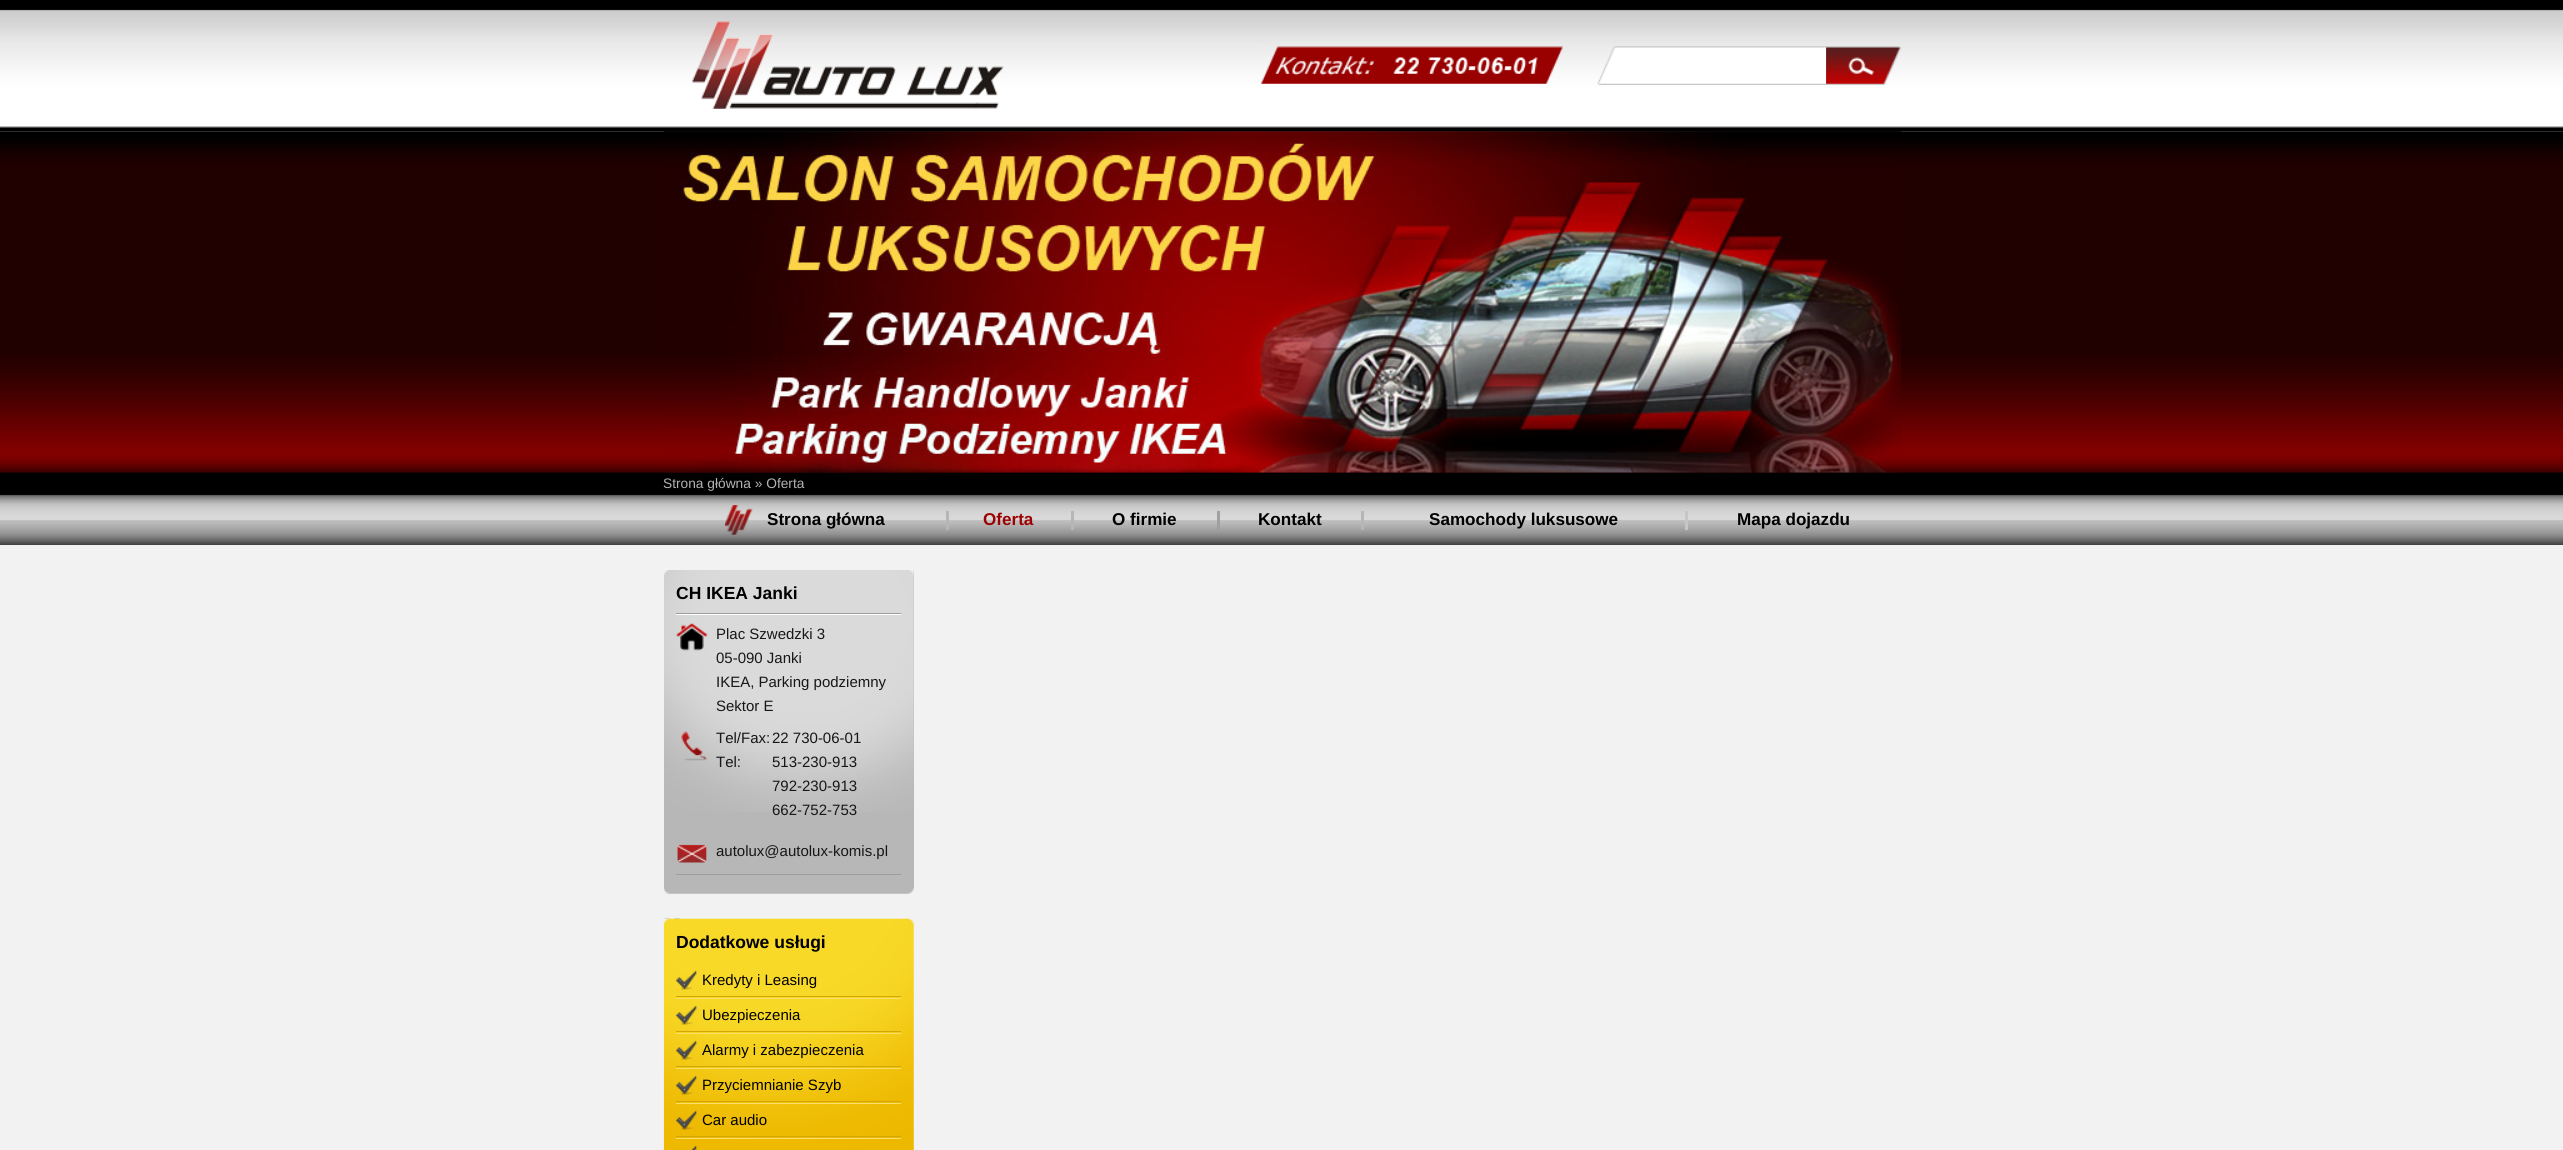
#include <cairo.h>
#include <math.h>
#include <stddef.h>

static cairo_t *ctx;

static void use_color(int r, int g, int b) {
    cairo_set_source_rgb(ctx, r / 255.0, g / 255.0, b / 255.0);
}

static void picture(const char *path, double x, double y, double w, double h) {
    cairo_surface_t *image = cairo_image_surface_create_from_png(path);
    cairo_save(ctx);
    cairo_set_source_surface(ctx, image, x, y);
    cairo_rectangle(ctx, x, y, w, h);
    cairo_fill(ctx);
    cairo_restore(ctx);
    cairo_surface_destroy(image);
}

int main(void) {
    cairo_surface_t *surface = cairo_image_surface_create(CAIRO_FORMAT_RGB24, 2563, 1150);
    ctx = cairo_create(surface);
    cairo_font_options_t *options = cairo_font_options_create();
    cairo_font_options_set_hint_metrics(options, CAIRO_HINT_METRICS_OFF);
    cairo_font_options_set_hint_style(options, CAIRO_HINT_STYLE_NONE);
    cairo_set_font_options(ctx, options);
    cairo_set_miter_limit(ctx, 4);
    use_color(242, 242, 242);
    cairo_paint(ctx);
    picture("img1.png", 0, 0, 2563, 132);
    picture("img2.png", 692, 21, 312, 88);
    picture("img3.png", 1261, 46, 641, 39);
    picture("img4.png", 1826, 46, 73, 38);
    picture("img5.png", 0, 131, 2563, 364);
    picture("img6.png", 663, 131, 1239, 342);
    cairo_select_font_face(ctx, "Liberation Sans", CAIRO_FONT_SLANT_NORMAL, CAIRO_FONT_WEIGHT_NORMAL);
    cairo_set_font_size(ctx, 13.75);
    use_color(180, 180, 180);
    cairo_move_to(ctx, 663, 488);
    cairo_show_text(ctx, "Strona główna » Oferta");
    picture("img7.png", 0, 495, 2563, 50);
    picture("img8.png", 725, 505, 28, 30);
    cairo_select_font_face(ctx, "Liberation Sans", CAIRO_FONT_SLANT_NORMAL, CAIRO_FONT_WEIGHT_BOLD);
    cairo_set_font_size(ctx, 17.1);
    use_color(0, 0, 0);
    cairo_move_to(ctx, 767, 525);
    cairo_show_text(ctx, "Strona główna");
    use_color(182, 182, 182);
    cairo_rectangle(ctx, 946, 511, 3, 19);
    cairo_fill(ctx);
    use_color(157, 1, 1);
    cairo_move_to(ctx, 983, 525);
    cairo_show_text(ctx, "Oferta");
    use_color(182, 182, 182);
    cairo_rectangle(ctx, 1071, 511, 3, 19);
    cairo_fill(ctx);
    use_color(0, 0, 0);
    cairo_move_to(ctx, 1112, 525);
    cairo_show_text(ctx, "O firmie");
    use_color(160, 160, 160);
    cairo_rectangle(ctx, 1217, 511, 3, 19);
    cairo_fill(ctx);
    use_color(0, 0, 0);
    cairo_move_to(ctx, 1258, 525);
    cairo_show_text(ctx, "Kontakt");
    use_color(182, 182, 182);
    cairo_rectangle(ctx, 1361, 511, 3, 19);
    cairo_fill(ctx);
    use_color(0, 0, 0);
    cairo_move_to(ctx, 1429, 525);
    cairo_show_text(ctx, "Samochody luksusowe");
    use_color(198, 198, 198);
    cairo_rectangle(ctx, 1685, 511, 3, 19);
    cairo_fill(ctx);
    use_color(0, 0, 0);
    cairo_move_to(ctx, 1737, 525);
    cairo_show_text(ctx, "Mapa dojazdu");
    picture("img9.png", 664, 888, 250, 6);
    use_color(184, 183, 183);
    cairo_rectangle(ctx, 664, 570, 250, 318);
    cairo_fill(ctx);
    picture("img10.png", 664, 570, 250, 242);
    use_color(157, 157, 157);
    cairo_rectangle(ctx, 676, 613, 225, 1);
    cairo_fill(ctx);
    cairo_set_font_size(ctx, 17.5);
    use_color(0, 0, 0);
    cairo_move_to(ctx, 676, 599);
    cairo_show_text(ctx, "CH IKEA Janki");
    picture("img11.png", 676, 623, 32, 28);
    use_color(255, 255, 255);
    cairo_rectangle(ctx, 676, 614, 225, 1);
    cairo_fill(ctx);
    cairo_select_font_face(ctx, "Liberation Sans", CAIRO_FONT_SLANT_NORMAL, CAIRO_FONT_WEIGHT_NORMAL);
    cairo_set_font_size(ctx, 15);
    use_color(23, 23, 23);
    cairo_move_to(ctx, 716, 639);
    cairo_show_text(ctx, "Plac Szwedzki 3");
    cairo_move_to(ctx, 716, 663);
    cairo_show_text(ctx, "05-090 Janki");
    cairo_move_to(ctx, 716, 687);
    cairo_show_text(ctx, "IKEA, Parking podziemny");
    cairo_move_to(ctx, 716, 711);
    cairo_show_text(ctx, "Sektor E");
    picture("img12.png", 681, 731, 27, 30);
    cairo_move_to(ctx, 716, 743);
    cairo_show_text(ctx, "Tel/Fax:");
    cairo_move_to(ctx, 772, 743);
    cairo_show_text(ctx, "22 730-06-01");
    cairo_move_to(ctx, 716, 767);
    cairo_show_text(ctx, "Tel:");
    cairo_move_to(ctx, 772, 767);
    cairo_show_text(ctx, "513-230-913");
    cairo_move_to(ctx, 772, 791);
    cairo_show_text(ctx, "792-230-913");
    cairo_move_to(ctx, 772, 815);
    cairo_show_text(ctx, "662-752-753");
    picture("img13.png", 677, 844, 30, 19);
    use_color(157, 157, 157);
    cairo_rectangle(ctx, 676, 874, 225, 1);
    cairo_fill(ctx);
    use_color(23, 23, 23);
    cairo_move_to(ctx, 716, 856);
    cairo_show_text(ctx, "autolux@autolux-komis.pl");
    picture("img14.png", 663, 918, 17, 3);
    picture("img15.png", 663, 918, 251, 232);
    cairo_select_font_face(ctx, "Liberation Sans", CAIRO_FONT_SLANT_NORMAL, CAIRO_FONT_WEIGHT_BOLD);
    cairo_set_font_size(ctx, 17.5);
    use_color(0, 0, 0);
    cairo_move_to(ctx, 676, 948);
    cairo_show_text(ctx, "Dodatkowe usługi");
    picture("img16.png", 676, 970, 21, 20);
    use_color(210, 166, 4);
    cairo_rectangle(ctx, 676, 996, 225, 1);
    cairo_fill(ctx);
    cairo_select_font_face(ctx, "Liberation Sans", CAIRO_FONT_SLANT_NORMAL, CAIRO_FONT_WEIGHT_NORMAL);
    cairo_set_font_size(ctx, 15);
    use_color(0, 0, 0);
    cairo_move_to(ctx, 702, 985);
    cairo_show_text(ctx, "Kredyty i Leasing");
    picture("img17.png", 676, 1005, 21, 20);
    use_color(253, 223, 104);
    cairo_rectangle(ctx, 676, 998, 225, 1);
    cairo_fill(ctx);
    use_color(210, 166, 4);
    cairo_rectangle(ctx, 676, 1031, 225, 1);
    cairo_fill(ctx);
    use_color(0, 0, 0);
    cairo_move_to(ctx, 702, 1020);
    cairo_show_text(ctx, "Ubezpieczenia");
    picture("img18.png", 676, 1040, 21, 20);
    use_color(253, 223, 104);
    cairo_rectangle(ctx, 676, 1033, 225, 1);
    cairo_fill(ctx);
    use_color(210, 166, 4);
    cairo_rectangle(ctx, 676, 1066, 225, 1);
    cairo_fill(ctx);
    use_color(0, 0, 0);
    cairo_move_to(ctx, 702, 1055);
    cairo_show_text(ctx, "Alarmy i zabezpieczenia");
    picture("img19.png", 676, 1075, 21, 20);
    use_color(253, 223, 104);
    cairo_rectangle(ctx, 676, 1068, 225, 1);
    cairo_fill(ctx);
    use_color(210, 166, 4);
    cairo_rectangle(ctx, 676, 1101, 225, 1);
    cairo_fill(ctx);
    use_color(0, 0, 0);
    cairo_move_to(ctx, 702, 1090);
    cairo_show_text(ctx, "Przyciemnianie Szyb");
    picture("img20.png", 676, 1110, 21, 20);
    use_color(253, 223, 104);
    cairo_rectangle(ctx, 676, 1103, 225, 1);
    cairo_fill(ctx);
    use_color(210, 166, 4);
    cairo_rectangle(ctx, 676, 1136, 225, 1);
    cairo_fill(ctx);
    use_color(0, 0, 0);
    cairo_move_to(ctx, 702, 1125);
    cairo_show_text(ctx, "Car audio");
    picture("img21.png", 691, 1145, 6, 5);
    use_color(253, 223, 104);
    cairo_rectangle(ctx, 676, 1138, 225, 1);
    cairo_fill(ctx);
    cairo_surface_write_to_png(surface, "result.png");
    cairo_font_options_destroy(options);
    cairo_destroy(ctx);
    cairo_surface_destroy(surface);
    return 0;
}
